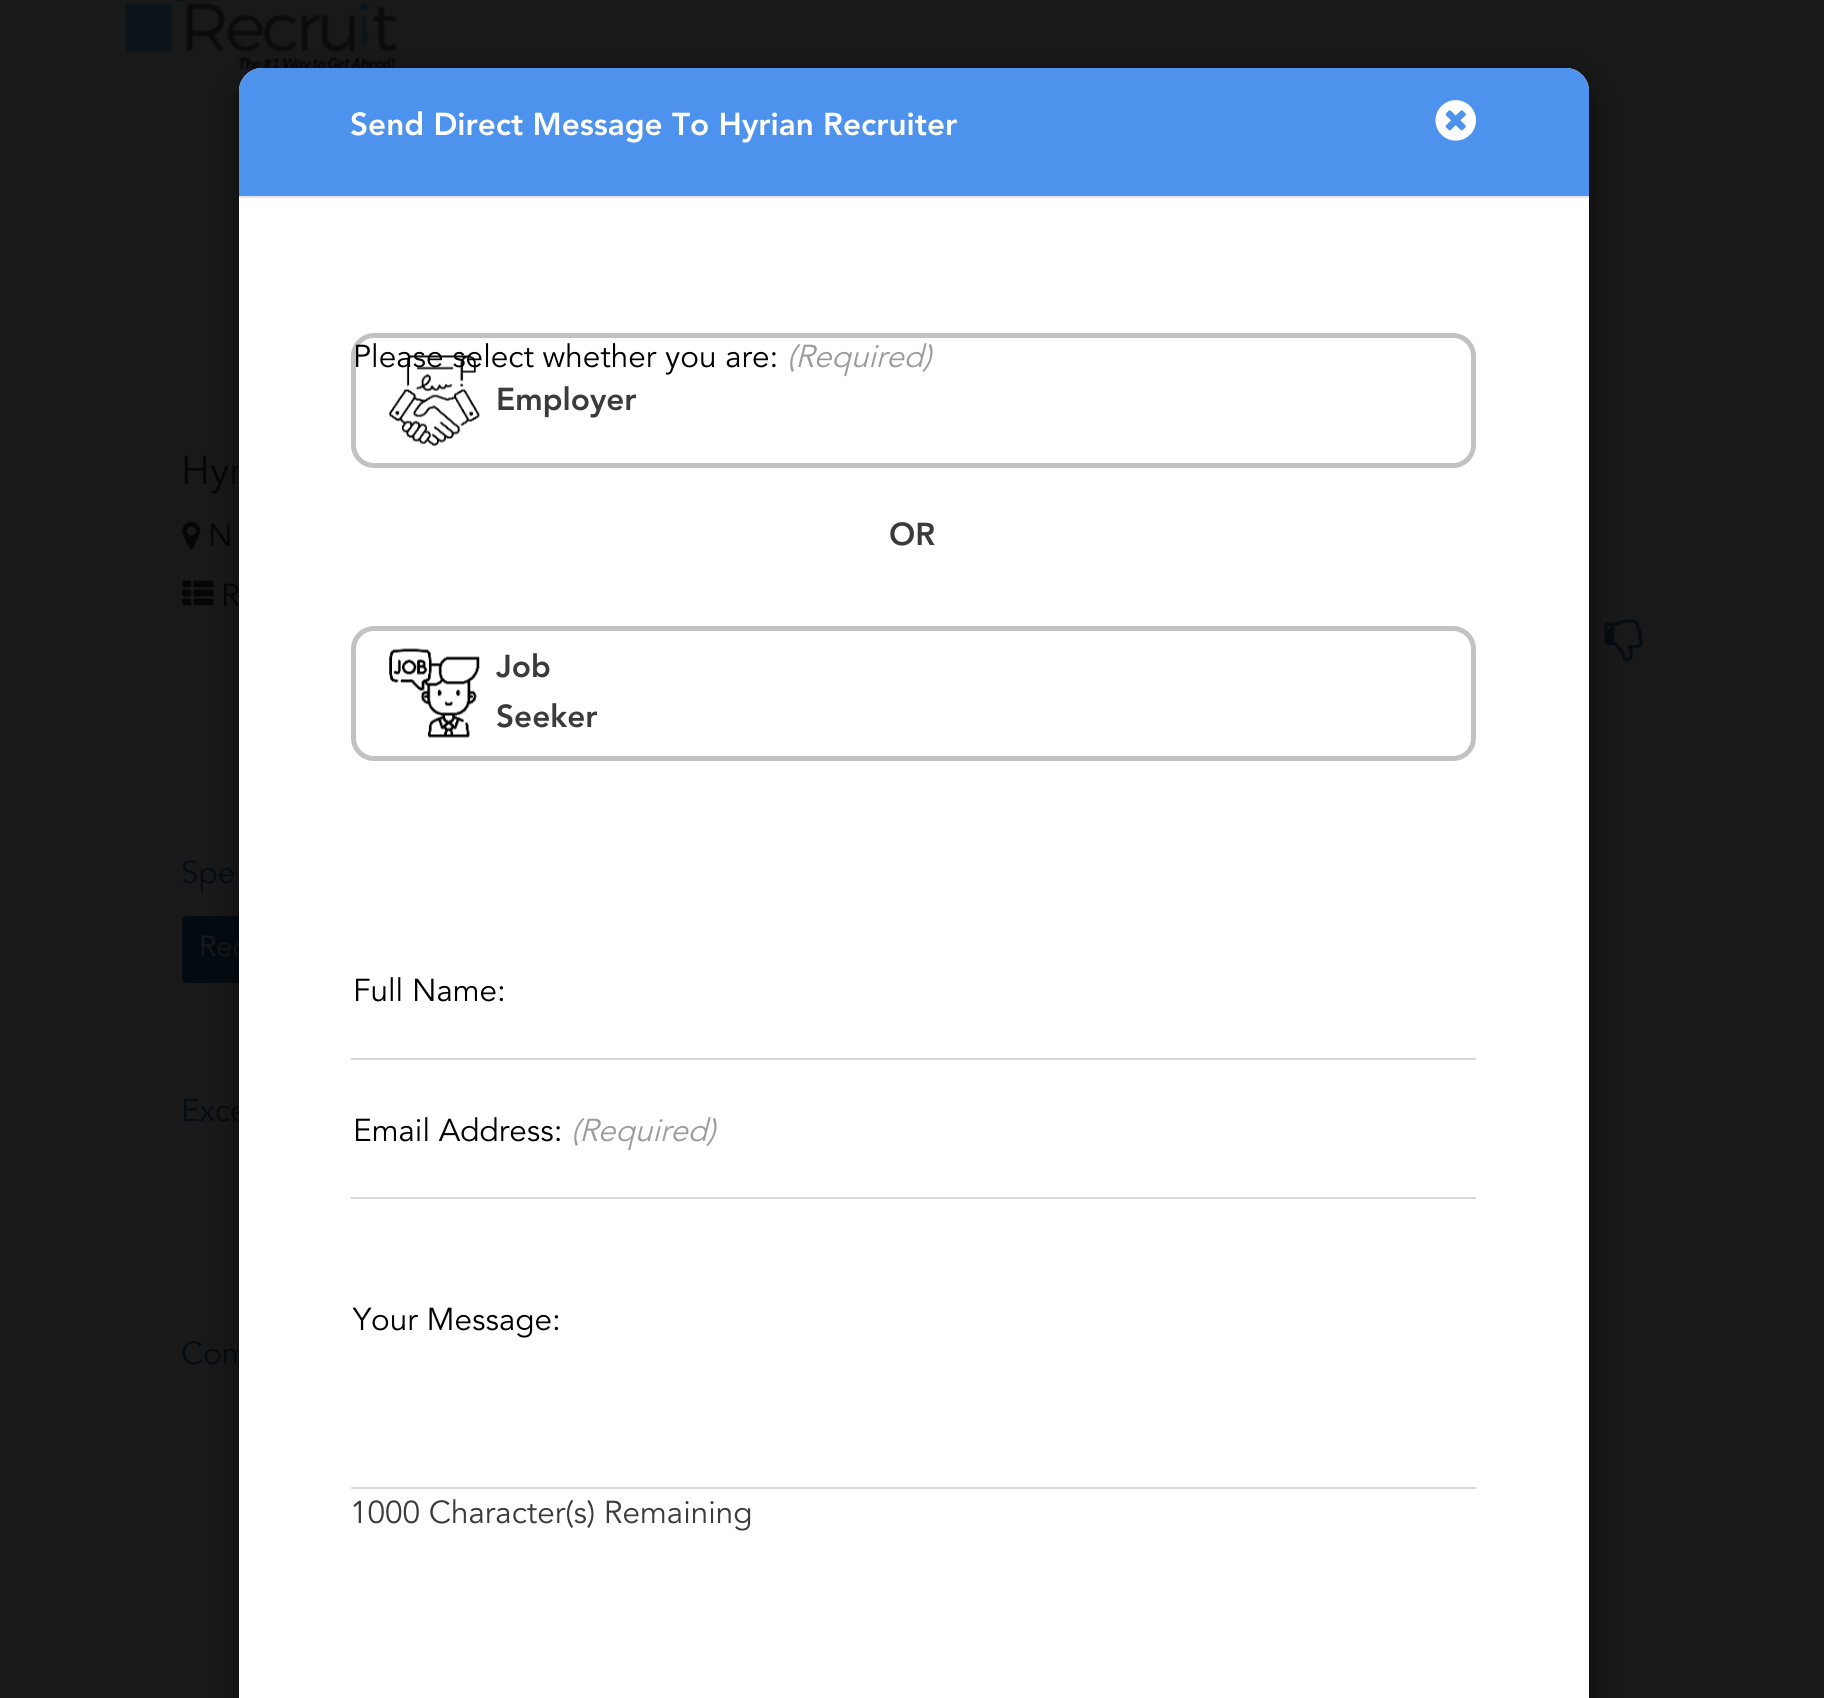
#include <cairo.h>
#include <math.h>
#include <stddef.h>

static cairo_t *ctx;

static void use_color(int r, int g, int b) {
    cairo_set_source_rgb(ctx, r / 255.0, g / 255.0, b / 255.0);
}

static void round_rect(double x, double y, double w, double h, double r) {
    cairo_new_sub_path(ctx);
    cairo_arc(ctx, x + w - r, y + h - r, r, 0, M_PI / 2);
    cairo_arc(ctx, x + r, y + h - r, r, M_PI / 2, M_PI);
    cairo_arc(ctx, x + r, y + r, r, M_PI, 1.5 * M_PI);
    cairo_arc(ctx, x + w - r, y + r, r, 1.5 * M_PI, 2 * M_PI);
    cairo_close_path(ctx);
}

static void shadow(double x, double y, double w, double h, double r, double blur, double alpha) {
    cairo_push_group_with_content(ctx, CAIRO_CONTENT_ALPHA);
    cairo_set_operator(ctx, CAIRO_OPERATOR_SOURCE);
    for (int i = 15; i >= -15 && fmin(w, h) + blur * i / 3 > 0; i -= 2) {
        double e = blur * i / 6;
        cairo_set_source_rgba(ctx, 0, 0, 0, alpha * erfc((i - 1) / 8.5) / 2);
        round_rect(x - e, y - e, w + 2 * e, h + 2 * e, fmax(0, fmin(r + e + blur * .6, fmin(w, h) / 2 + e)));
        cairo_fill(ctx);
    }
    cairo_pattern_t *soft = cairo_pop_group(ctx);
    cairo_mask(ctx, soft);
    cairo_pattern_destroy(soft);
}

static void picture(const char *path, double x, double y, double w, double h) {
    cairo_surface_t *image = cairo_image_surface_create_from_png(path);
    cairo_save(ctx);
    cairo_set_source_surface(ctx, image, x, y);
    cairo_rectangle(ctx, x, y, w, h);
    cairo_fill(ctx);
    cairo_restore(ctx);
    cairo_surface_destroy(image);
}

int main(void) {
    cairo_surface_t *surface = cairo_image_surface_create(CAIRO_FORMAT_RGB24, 1824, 1698);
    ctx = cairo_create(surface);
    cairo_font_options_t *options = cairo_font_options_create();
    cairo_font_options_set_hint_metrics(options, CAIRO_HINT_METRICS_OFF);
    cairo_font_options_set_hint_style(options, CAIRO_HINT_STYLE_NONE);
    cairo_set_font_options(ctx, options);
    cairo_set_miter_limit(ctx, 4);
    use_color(25, 25, 25);
    cairo_paint(ctx);
    picture("img1.png", 126, 0, 270, 71);
    cairo_select_font_face(ctx, "Avenir", CAIRO_FONT_SLANT_NORMAL, CAIRO_FONT_WEIGHT_NORMAL);
    cairo_set_font_size(ctx, 40);
    use_color(6, 6, 6);
    cairo_move_to(ctx, 181, 484);
    cairo_show_text(ctx, "Hyr");
    picture("img2.png", 182, 522, 19, 27);
    cairo_set_font_size(ctx, 31.5);
    cairo_move_to(ctx, 208, 546);
    cairo_show_text(ctx, "N");
    picture("img3.png", 182, 580, 32, 26);
    cairo_move_to(ctx, 221, 606);
    cairo_show_text(ctx, "R");
    picture("img4.png", 1604, 619, 39, 43);
    use_color(3, 12, 19);
    cairo_move_to(ctx, 181, 883);
    cairo_show_text(ctx, "Spe");
    use_color(3, 11, 18);
    round_rect(182, 916, 167, 67, 5);
    cairo_fill(ctx);
    cairo_set_font_size(ctx, 29);
    use_color(25, 25, 25);
    cairo_move_to(ctx, 199, 956);
    cairo_show_text(ctx, "Rec");
    cairo_set_font_size(ctx, 31.5);
    use_color(3, 12, 19);
    cairo_move_to(ctx, 181, 1121);
    cairo_show_text(ctx, "Exce");
    cairo_move_to(ctx, 181, 1364);
    cairo_show_text(ctx, "Com");
    use_color(0, 0, 0);
    shadow(239, 79, 1350, 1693, 23, 17, 0.5);
    use_color(255, 255, 255);
    cairo_new_path(ctx);
    cairo_move_to(ctx, 262, 68);
    cairo_line_to(ctx, 1566, 68);
    cairo_curve_to(ctx, 1578.5, 68, 1589, 78.5, 1589, 91);
    cairo_line_to(ctx, 1589, 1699);
    cairo_line_to(ctx, 239, 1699);
    cairo_line_to(ctx, 239, 91);
    cairo_curve_to(ctx, 239, 78.5, 249.5, 68, 262, 68);
    cairo_close_path(ctx);
    cairo_fill(ctx);
    use_color(77, 146, 236);
    cairo_new_path(ctx);
    cairo_move_to(ctx, 262, 68);
    cairo_line_to(ctx, 1566, 68);
    cairo_curve_to(ctx, 1578.5, 68, 1589, 78.5, 1589, 91);
    cairo_line_to(ctx, 1589, 196);
    cairo_line_to(ctx, 239, 196);
    cairo_line_to(ctx, 239, 91);
    cairo_curve_to(ctx, 239, 78.5, 249.5, 68, 262, 68);
    cairo_close_path(ctx);
    cairo_fill(ctx);
    use_color(229, 229, 229);
    cairo_rectangle(ctx, 239, 196, 1350, 2);
    cairo_fill(ctx);
    cairo_select_font_face(ctx, "Avenir Black", CAIRO_FONT_SLANT_NORMAL, CAIRO_FONT_WEIGHT_NORMAL);
    use_color(255, 255, 255);
    cairo_move_to(ctx, 350, 135);
    cairo_show_text(ctx, "Send Direct Message To Hyrian Recruiter");
    picture("img5.png", 1435, 100, 41, 41);
    round_rect(353.5, 335.5, 1120, 130, 20.5);
    use_color(194, 194, 194);
    cairo_set_line_width(ctx, 5);
    cairo_stroke(ctx);
    picture("img6.png", 389, 355, 91, 91);
    cairo_select_font_face(ctx, "Avenir", CAIRO_FONT_SLANT_NORMAL, CAIRO_FONT_WEIGHT_NORMAL);
    use_color(0, 0, 0);
    cairo_move_to(ctx, 353, 367);
    cairo_show_text(ctx, "Please select whether you are:");
    cairo_select_font_face(ctx, "Avenir", CAIRO_FONT_SLANT_ITALIC, CAIRO_FONT_WEIGHT_NORMAL);
    use_color(156, 156, 156);
    cairo_move_to(ctx, 787, 367);
    cairo_show_text(ctx, "(Required)");
    cairo_select_font_face(ctx, "Avenir Black", CAIRO_FONT_SLANT_NORMAL, CAIRO_FONT_WEIGHT_NORMAL);
    use_color(58, 59, 59);
    cairo_move_to(ctx, 496, 410);
    cairo_show_text(ctx, "Employer");
    cairo_move_to(ctx, 889, 545);
    cairo_show_text(ctx, "OR");
    round_rect(353.5, 628.5, 1120, 130, 20.5);
    use_color(194, 194, 194);
    cairo_stroke(ctx);
    picture("img7.png", 389, 648, 91, 90);
    use_color(58, 59, 59);
    cairo_move_to(ctx, 496, 677);
    cairo_show_text(ctx, "Job");
    cairo_move_to(ctx, 496, 727);
    cairo_show_text(ctx, "Seeker");
    cairo_select_font_face(ctx, "Avenir", CAIRO_FONT_SLANT_NORMAL, CAIRO_FONT_WEIGHT_NORMAL);
    use_color(0, 0, 0);
    cairo_move_to(ctx, 353, 1001);
    cairo_show_text(ctx, "Full Name:");
    use_color(216, 216, 216);
    cairo_rectangle(ctx, 351, 1058, 1125, 2);
    cairo_fill(ctx);
    use_color(0, 0, 0);
    cairo_move_to(ctx, 353, 1141);
    cairo_show_text(ctx, "Email Address:");
    cairo_select_font_face(ctx, "Avenir", CAIRO_FONT_SLANT_ITALIC, CAIRO_FONT_WEIGHT_NORMAL);
    use_color(156, 156, 156);
    cairo_move_to(ctx, 571, 1141);
    cairo_show_text(ctx, "(Required)");
    use_color(216, 216, 216);
    cairo_rectangle(ctx, 351, 1197, 1125, 2);
    cairo_fill(ctx);
    cairo_select_font_face(ctx, "Avenir", CAIRO_FONT_SLANT_NORMAL, CAIRO_FONT_WEIGHT_NORMAL);
    use_color(0, 0, 0);
    cairo_move_to(ctx, 353, 1330);
    cairo_show_text(ctx, "Your Message:");
    use_color(216, 216, 216);
    cairo_rectangle(ctx, 351, 1487, 1125, 2);
    cairo_fill(ctx);
    use_color(58, 59, 59);
    cairo_move_to(ctx, 350, 1523);
    cairo_show_text(ctx, "1000 Character(s) Remaining");
    cairo_surface_write_to_png(surface, "result.png");
    cairo_font_options_destroy(options);
    cairo_destroy(ctx);
    cairo_surface_destroy(surface);
    return 0;
}
